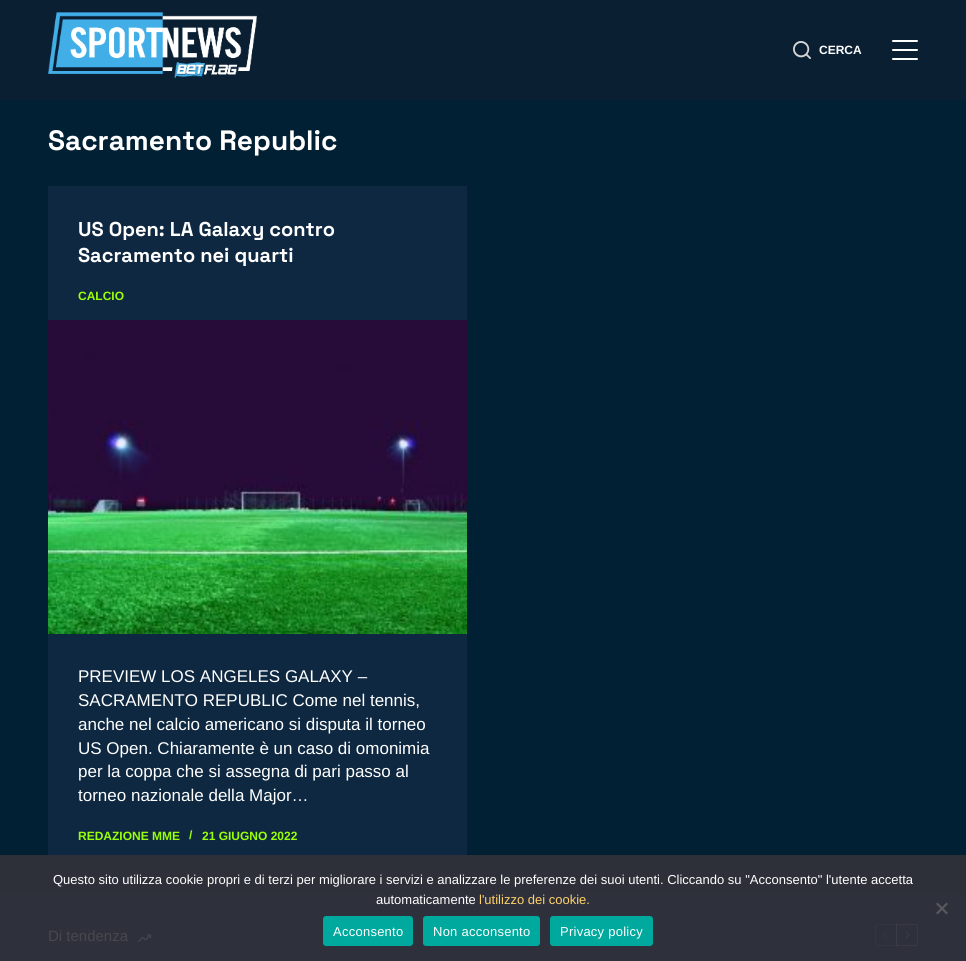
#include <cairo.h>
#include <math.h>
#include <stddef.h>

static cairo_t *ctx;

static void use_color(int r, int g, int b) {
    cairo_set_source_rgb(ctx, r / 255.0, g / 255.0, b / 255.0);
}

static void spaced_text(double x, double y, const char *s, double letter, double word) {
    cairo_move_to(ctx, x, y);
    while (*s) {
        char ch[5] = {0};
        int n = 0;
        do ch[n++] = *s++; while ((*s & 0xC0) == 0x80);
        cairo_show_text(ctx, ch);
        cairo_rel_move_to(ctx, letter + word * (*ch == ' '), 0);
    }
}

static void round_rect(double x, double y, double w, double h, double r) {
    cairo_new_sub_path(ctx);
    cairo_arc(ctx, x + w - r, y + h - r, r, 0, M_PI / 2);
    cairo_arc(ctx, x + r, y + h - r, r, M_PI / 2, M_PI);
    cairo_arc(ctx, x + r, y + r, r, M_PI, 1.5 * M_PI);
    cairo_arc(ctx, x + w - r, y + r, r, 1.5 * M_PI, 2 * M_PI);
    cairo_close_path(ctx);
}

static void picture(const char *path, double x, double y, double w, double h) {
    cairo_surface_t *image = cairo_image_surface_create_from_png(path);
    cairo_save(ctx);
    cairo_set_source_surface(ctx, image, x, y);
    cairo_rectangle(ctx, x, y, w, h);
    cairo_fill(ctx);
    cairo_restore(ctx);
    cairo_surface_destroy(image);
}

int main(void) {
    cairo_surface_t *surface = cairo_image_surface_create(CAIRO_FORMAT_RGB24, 966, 961);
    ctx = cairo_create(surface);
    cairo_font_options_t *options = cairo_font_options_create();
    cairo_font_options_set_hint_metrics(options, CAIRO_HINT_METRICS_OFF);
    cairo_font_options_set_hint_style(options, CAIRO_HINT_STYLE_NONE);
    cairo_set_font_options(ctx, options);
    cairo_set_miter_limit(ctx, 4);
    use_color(2, 32, 52);
    cairo_paint(ctx);
    use_color(45, 48, 57);
    cairo_rectangle(ctx, 0, 855, 966, 39);
    cairo_fill(ctx);
    use_color(10, 31, 50);
    cairo_rectangle(ctx, 0, 0, 966, 100);
    cairo_fill(ctx);
    picture("img1.png", 48, 12, 209, 66);
    picture("img2.png", 793, 41, 18, 18);
    cairo_select_font_face(ctx, "Liberation Sans", CAIRO_FONT_SLANT_NORMAL, CAIRO_FONT_WEIGHT_BOLD);
    cairo_set_font_size(ctx, 12);
    use_color(255, 255, 255);
    cairo_move_to(ctx, 819, 54);
    cairo_show_text(ctx, "CERCA");
    round_rect(892, 40, 26, 2, 1);
    cairo_fill(ctx);
    round_rect(892, 49, 26, 2, 1);
    cairo_fill(ctx);
    round_rect(892, 58, 26, 2, 1);
    cairo_fill(ctx);
    cairo_select_font_face(ctx, "Space Grotesk", CAIRO_FONT_SLANT_NORMAL, CAIRO_FONT_WEIGHT_BOLD);
    cairo_set_font_size(ctx, 28);
    cairo_move_to(ctx, 48, 150);
    cairo_show_text(ctx, "Sacramento Republic");
    use_color(14, 40, 65);
    cairo_rectangle(ctx, 48, 186, 419, 669);
    cairo_fill(ctx);
    cairo_set_font_size(ctx, 20);
    use_color(255, 255, 255);
    cairo_move_to(ctx, 78, 236);
    cairo_show_text(ctx, "US Open: LA Galaxy contro");
    cairo_move_to(ctx, 78, 262);
    cairo_show_text(ctx, "Sacramento nei quarti");
    cairo_select_font_face(ctx, "Liberation Sans", CAIRO_FONT_SLANT_NORMAL, CAIRO_FONT_WEIGHT_BOLD);
    cairo_set_font_size(ctx, 12);
    use_color(154, 255, 7);
    cairo_move_to(ctx, 78, 300);
    cairo_show_text(ctx, "CALCIO");
    picture("img3.png", 48, 320, 419, 314);
    cairo_select_font_face(ctx, "Liberation Sans", CAIRO_FONT_SLANT_NORMAL, CAIRO_FONT_WEIGHT_NORMAL);
    cairo_set_font_size(ctx, 17);
    use_color(255, 255, 255);
    cairo_move_to(ctx, 78, 682);
    cairo_show_text(ctx, "PREVIEW LOS ANGELES GALAXY –");
    cairo_move_to(ctx, 78, 706);
    cairo_show_text(ctx, "SACRAMENTO REPUBLIC Come nel tennis,");
    cairo_move_to(ctx, 78, 730);
    cairo_show_text(ctx, "anche nel calcio americano si disputa il torneo");
    cairo_move_to(ctx, 78, 754);
    cairo_show_text(ctx, "US Open. Chiaramente è un caso di omonimia");
    cairo_move_to(ctx, 78, 777);
    cairo_show_text(ctx, "per la coppa che si assegna di pari passo al");
    cairo_move_to(ctx, 78, 801);
    cairo_show_text(ctx, "torneo nazionale della Major…");
    cairo_select_font_face(ctx, "Liberation Sans", CAIRO_FONT_SLANT_NORMAL, CAIRO_FONT_WEIGHT_BOLD);
    cairo_set_font_size(ctx, 12);
    use_color(154, 255, 7);
    cairo_move_to(ctx, 78, 840);
    cairo_show_text(ctx, "REDAZIONE MME");
    cairo_move_to(ctx, 189, 839);
    cairo_show_text(ctx, "/");
    cairo_move_to(ctx, 202, 840);
    cairo_show_text(ctx, "21 GIUGNO 2022");
    use_color(46, 49, 59);
    cairo_rectangle(ctx, 0, 894, 966, 67);
    cairo_fill(ctx);
    cairo_select_font_face(ctx, "Liberation Sans", CAIRO_FONT_SLANT_NORMAL, CAIRO_FONT_WEIGHT_NORMAL);
    cairo_set_font_size(ctx, 15);
    use_color(71, 71, 78);
    cairo_move_to(ctx, 48, 941);
    cairo_show_text(ctx, "Di tendenza");
    picture("img4.png", 138, 934, 13, 8);
    cairo_new_path(ctx);
    cairo_move_to(ctx, 878, 924.5);
    cairo_line_to(ctx, 896.5, 924.5);
    cairo_line_to(ctx, 896.5, 945.5);
    cairo_line_to(ctx, 878, 945.5);
    cairo_curve_to(ctx, 876.5, 945.5, 875.5, 944.5, 875.5, 943);
    cairo_line_to(ctx, 875.5, 927);
    cairo_curve_to(ctx, 875.5, 925.5, 876.5, 924.5, 878, 924.5);
    cairo_close_path(ctx);
    use_color(51, 53, 63);
    cairo_set_line_width(ctx, 1);
    cairo_stroke(ctx);
    picture("img5.png", 883, 931, 5, 8);
    cairo_new_path(ctx);
    cairo_move_to(ctx, 896.5, 924.5);
    cairo_line_to(ctx, 915, 924.5);
    cairo_curve_to(ctx, 916.5, 924.5, 917.5, 925.5, 917.5, 927);
    cairo_line_to(ctx, 917.5, 943);
    cairo_curve_to(ctx, 917.5, 944.5, 916.5, 945.5, 915, 945.5);
    cairo_line_to(ctx, 896.5, 945.5);
    cairo_close_path(ctx);
    cairo_set_source_rgba(ctx, 0.278, 0.278, 0.306, 0.4);
    cairo_stroke(ctx);
    picture("img6.png", 905, 931, 5, 8);
    cairo_set_font_size(ctx, 13);
    use_color(255, 255, 255);
    cairo_move_to(ctx, 53, 884);
    cairo_show_text(ctx, "Questo sito utilizza cookie propri e di terzi per migliorare i servizi e analizzare le preferenze dei suoi utenti. Cliccando su \"Acconsento\" l'utente accetta");
    cairo_move_to(ctx, 376, 904);
    cairo_show_text(ctx, "automaticamente");
    use_color(255, 209, 107);
    cairo_move_to(ctx, 479, 904);
    cairo_show_text(ctx, "l'utilizzo dei cookie.");
    use_color(87, 89, 93);
    cairo_new_path(ctx);
    cairo_move_to(ctx, 946.5, 902.5);
    cairo_line_to(ctx, 948, 904);
    cairo_line_to(ctx, 937.5, 914.5);
    cairo_line_to(ctx, 936, 913);
    cairo_close_path(ctx);
    cairo_fill(ctx);
    cairo_new_path(ctx);
    cairo_move_to(ctx, 936, 904);
    cairo_line_to(ctx, 937.5, 902.5);
    cairo_line_to(ctx, 948, 913);
    cairo_line_to(ctx, 946.5, 914.5);
    cairo_close_path(ctx);
    cairo_fill(ctx);
    use_color(0, 169, 157);
    round_rect(323, 916, 90, 30, 3);
    cairo_fill(ctx);
    use_color(255, 255, 255);
    spaced_text(333, 936, "Acconsento", 0.25, 0);
    use_color(0, 169, 157);
    round_rect(423, 916, 117, 30, 3);
    cairo_fill(ctx);
    use_color(255, 255, 255);
    spaced_text(433, 936, "Non acconsento", 0.25, 0);
    use_color(0, 169, 157);
    round_rect(550, 916, 103, 30, 3);
    cairo_fill(ctx);
    use_color(255, 255, 255);
    spaced_text(560, 936, "Privacy policy", 0.25, 0);
    cairo_surface_write_to_png(surface, "result.png");
    cairo_font_options_destroy(options);
    cairo_destroy(ctx);
    cairo_surface_destroy(surface);
    return 0;
}
